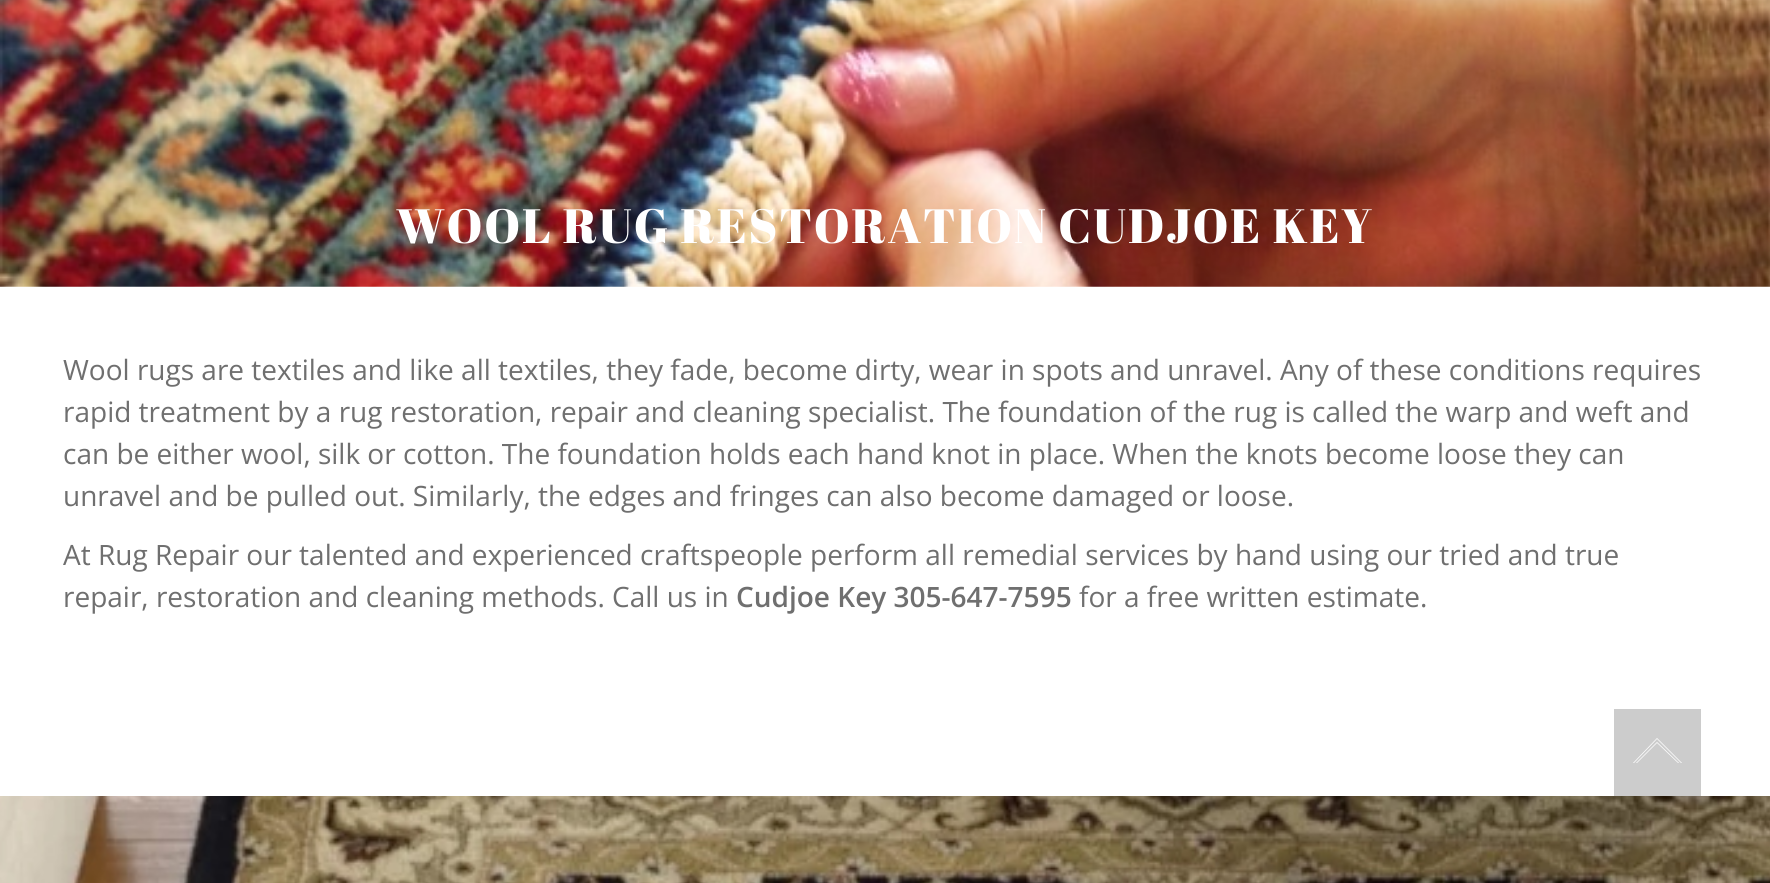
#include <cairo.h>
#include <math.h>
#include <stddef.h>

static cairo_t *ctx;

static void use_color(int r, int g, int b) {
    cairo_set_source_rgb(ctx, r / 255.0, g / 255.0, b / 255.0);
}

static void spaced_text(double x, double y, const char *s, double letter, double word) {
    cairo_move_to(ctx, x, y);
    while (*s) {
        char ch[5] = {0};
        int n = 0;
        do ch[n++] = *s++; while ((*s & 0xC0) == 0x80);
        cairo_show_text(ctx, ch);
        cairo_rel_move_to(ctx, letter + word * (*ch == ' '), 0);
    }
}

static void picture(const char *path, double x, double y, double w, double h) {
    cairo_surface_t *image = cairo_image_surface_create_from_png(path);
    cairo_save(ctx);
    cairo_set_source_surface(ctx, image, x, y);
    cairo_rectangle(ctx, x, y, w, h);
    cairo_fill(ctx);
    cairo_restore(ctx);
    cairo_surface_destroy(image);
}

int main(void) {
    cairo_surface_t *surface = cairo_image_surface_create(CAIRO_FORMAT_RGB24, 1770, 883);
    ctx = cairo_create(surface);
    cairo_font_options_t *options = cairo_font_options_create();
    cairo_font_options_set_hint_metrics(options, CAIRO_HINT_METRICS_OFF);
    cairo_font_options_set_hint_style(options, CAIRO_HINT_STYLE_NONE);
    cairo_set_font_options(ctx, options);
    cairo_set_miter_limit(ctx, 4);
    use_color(255, 255, 255);
    cairo_paint(ctx);
    picture("img1.png", 0, 0, 1770, 287);
    cairo_select_font_face(ctx, "Abril Fatface", CAIRO_FONT_SLANT_NORMAL, CAIRO_FONT_WEIGHT_NORMAL);
    cairo_set_font_size(ctx, 48.1);
    use_color(255, 255, 255);
    spaced_text(396, 243, "WOOL RUG RESTORATION CUDJOE KEY", 1.75, 0);
    cairo_select_font_face(ctx, "Open Sans", CAIRO_FONT_SLANT_NORMAL, CAIRO_FONT_WEIGHT_NORMAL);
    cairo_set_font_size(ctx, 28);
    use_color(111, 111, 111);
    cairo_move_to(ctx, 63, 380);
    cairo_show_text(ctx, "Wool rugs are textiles and like all textiles, they fade, become dirty, wear in spots and unravel. Any of these conditions requires");
    cairo_move_to(ctx, 63, 422);
    cairo_show_text(ctx, "rapid treatment by a rug restoration, repair and cleaning specialist. The foundation of the rug is called the warp and weft and");
    cairo_move_to(ctx, 63, 464);
    cairo_show_text(ctx, "can be either wool, silk or cotton. The foundation holds each hand knot in place. When the knots become loose they can");
    cairo_move_to(ctx, 63, 506);
    cairo_show_text(ctx, "unravel and be pulled out. Similarly, the edges and fringes can also become damaged or loose.");
    cairo_move_to(ctx, 63, 565);
    cairo_show_text(ctx, "At Rug Repair our talented and experienced craftspeople perform all remedial services by hand using our tried and true");
    cairo_move_to(ctx, 63, 607);
    cairo_show_text(ctx, "repair, restoration and cleaning methods. Call us in");
    cairo_select_font_face(ctx, "Open Sans SemiBold", CAIRO_FONT_SLANT_NORMAL, CAIRO_FONT_WEIGHT_NORMAL);
    cairo_move_to(ctx, 736, 607);
    cairo_show_text(ctx, "Cudjoe Key 305-647-7595");
    cairo_select_font_face(ctx, "Open Sans", CAIRO_FONT_SLANT_NORMAL, CAIRO_FONT_WEIGHT_NORMAL);
    cairo_move_to(ctx, 1079, 607);
    cairo_show_text(ctx, "for a free written estimate.");
    picture("img2.png", 0, 796, 1770, 87);
    use_color(204, 204, 204);
    cairo_rectangle(ctx, 1614, 709, 87, 87);
    cairo_fill(ctx);
    use_color(255, 255, 255);
    cairo_new_path(ctx);
    cairo_move_to(ctx, 1637, 763);
    cairo_line_to(ctx, 1657, 743);
    cairo_line_to(ctx, 1678, 763);
    cairo_line_to(ctx, 1679, 763);
    cairo_line_to(ctx, 1657, 742);
    cairo_line_to(ctx, 1636, 763);
    cairo_close_path(ctx);
    cairo_move_to(ctx, 1634, 763);
    cairo_line_to(ctx, 1657, 739);
    cairo_line_to(ctx, 1681, 763);
    cairo_line_to(ctx, 1682, 763);
    cairo_line_to(ctx, 1657, 738);
    cairo_line_to(ctx, 1633, 763);
    cairo_close_path(ctx);
    cairo_fill(ctx);
    cairo_surface_write_to_png(surface, "result.png");
    cairo_font_options_destroy(options);
    cairo_destroy(ctx);
    cairo_surface_destroy(surface);
    return 0;
}
